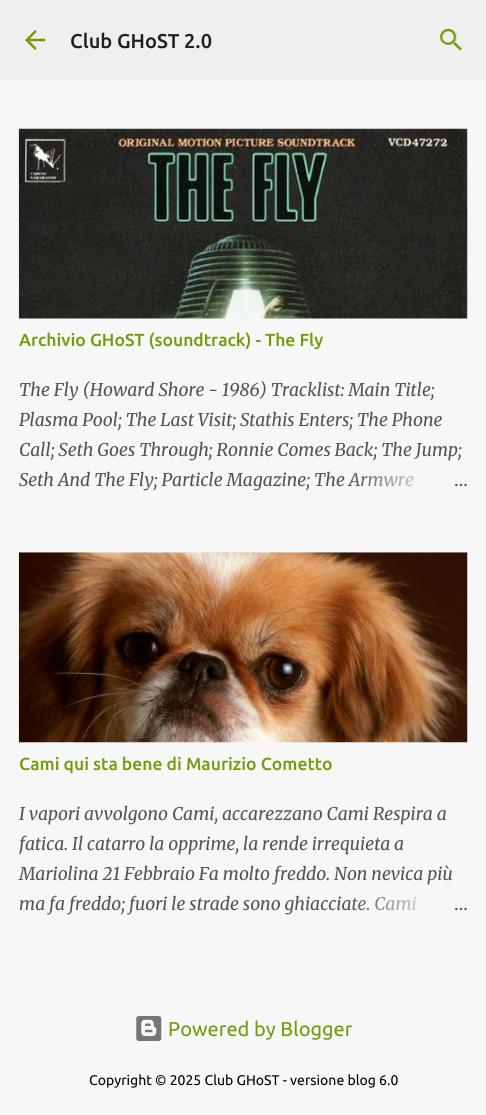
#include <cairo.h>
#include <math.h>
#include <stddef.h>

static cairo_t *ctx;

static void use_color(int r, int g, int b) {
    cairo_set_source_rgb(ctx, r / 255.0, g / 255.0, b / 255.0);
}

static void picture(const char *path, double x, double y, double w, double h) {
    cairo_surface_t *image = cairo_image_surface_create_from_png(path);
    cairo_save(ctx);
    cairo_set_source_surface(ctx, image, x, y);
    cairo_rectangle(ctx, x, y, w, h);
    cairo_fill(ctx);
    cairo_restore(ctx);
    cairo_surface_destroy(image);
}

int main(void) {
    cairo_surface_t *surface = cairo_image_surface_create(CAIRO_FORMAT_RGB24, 486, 1115);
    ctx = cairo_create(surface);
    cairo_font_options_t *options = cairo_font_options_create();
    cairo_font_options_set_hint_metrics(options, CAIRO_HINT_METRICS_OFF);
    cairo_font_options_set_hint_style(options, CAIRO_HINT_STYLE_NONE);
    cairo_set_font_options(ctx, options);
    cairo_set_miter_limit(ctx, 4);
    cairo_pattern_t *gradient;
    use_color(247, 247, 247);
    cairo_paint(ctx);
    use_color(239, 239, 239);
    cairo_rectangle(ctx, 0, 0, 486, 80);
    cairo_fill(ctx);
    picture("img1.png", 25, 30, 20, 20);
    cairo_select_font_face(ctx, "Ubuntu Medium", CAIRO_FONT_SLANT_NORMAL, CAIRO_FONT_WEIGHT_NORMAL);
    cairo_set_font_size(ctx, 20);
    use_color(31, 31, 31);
    cairo_move_to(ctx, 70, 48);
    cairo_show_text(ctx, "Club GHoST 2.0");
    picture("img2.png", 439, 28, 24, 23);
    picture("img3.png", 18, 128, 450, 191);
    cairo_set_font_size(ctx, 17.5);
    use_color(114, 156, 11);
    cairo_move_to(ctx, 19, 346);
    cairo_show_text(ctx, "Archivio GHoST (soundtrack) - The Fly");
    cairo_select_font_face(ctx, "Merriweather", CAIRO_FONT_SLANT_ITALIC, CAIRO_FONT_WEIGHT_NORMAL);
    use_color(83, 83, 83);
    cairo_move_to(ctx, 19, 396);
    cairo_show_text(ctx, "The Fly (Howard Shore - 1986) Tracklist: Main Title;");
    cairo_move_to(ctx, 19, 426);
    cairo_show_text(ctx, "Plasma Pool; The Last Visit; Stathis Enters; The Phone");
    cairo_move_to(ctx, 19, 456);
    cairo_show_text(ctx, "Call; Seth Goes Through; Ronnie Comes Back; The Jump;");
    cairo_move_to(ctx, 19, 486);
    cairo_show_text(ctx, "Seth And The Fly; Particle Magazine; The Armwre");
    gradient = cairo_pattern_create_linear(468, 480, 348, 480);
    cairo_pattern_add_color_stop_rgba(gradient, 0, 0.969, 0.969, 0.969, 1);
    cairo_pattern_add_color_stop_rgba(gradient, 0.2, 0.969, 0.969, 0.969, 1);
    cairo_pattern_add_color_stop_rgba(gradient, 1, 0.969, 0.969, 0.969, 0);
    cairo_set_source(ctx, gradient);
    cairo_pattern_destroy(gradient);
    cairo_rectangle(ctx, 350, 473, 63, 14);
    cairo_fill(ctx);
    cairo_select_font_face(ctx, "Merriweather Light", CAIRO_FONT_SLANT_NORMAL, CAIRO_FONT_WEIGHT_NORMAL);
    use_color(83, 83, 83);
    cairo_move_to(ctx, 454, 486);
    cairo_show_text(ctx, "…");
    picture("img4.png", 18, 552, 450, 191);
    cairo_select_font_face(ctx, "Ubuntu Medium", CAIRO_FONT_SLANT_NORMAL, CAIRO_FONT_WEIGHT_NORMAL);
    use_color(114, 156, 11);
    cairo_move_to(ctx, 19, 770);
    cairo_show_text(ctx, "Cami qui sta bene di Maurizio Cometto");
    cairo_select_font_face(ctx, "Merriweather", CAIRO_FONT_SLANT_ITALIC, CAIRO_FONT_WEIGHT_NORMAL);
    use_color(83, 83, 83);
    cairo_move_to(ctx, 19, 820);
    cairo_show_text(ctx, "I vapori avvolgono Cami, accarezzano Cami Respira a");
    cairo_save(ctx);
    cairo_rectangle(ctx, 19, 799, 449, 120);
    cairo_clip(ctx);
    cairo_move_to(ctx, 19, 850);
    cairo_show_text(ctx, "fatica. Il catarro la opprime, la rende irrequieta a");
    cairo_restore(ctx);
    cairo_move_to(ctx, 19, 880);
    cairo_show_text(ctx, "Mariolina 21 Febbraio Fa molto freddo. Non nevica più");
    cairo_move_to(ctx, 19, 910);
    cairo_show_text(ctx, "ma fa freddo; fuori le strade sono ghiacciate. Cami");
    gradient = cairo_pattern_create_linear(468, 904, 348, 904);
    cairo_pattern_add_color_stop_rgba(gradient, 0, 0.969, 0.969, 0.969, 1);
    cairo_pattern_add_color_stop_rgba(gradient, 0.2, 0.969, 0.969, 0.969, 1);
    cairo_pattern_add_color_stop_rgba(gradient, 1, 0.969, 0.969, 0.969, 0);
    cairo_set_source(ctx, gradient);
    cairo_pattern_destroy(gradient);
    cairo_rectangle(ctx, 352, 896, 64, 15);
    cairo_fill(ctx);
    cairo_select_font_face(ctx, "Merriweather Light", CAIRO_FONT_SLANT_NORMAL, CAIRO_FONT_WEIGHT_NORMAL);
    use_color(83, 83, 83);
    cairo_move_to(ctx, 454, 910);
    cairo_show_text(ctx, "…");
    picture("img5.png", 136, 1016, 26, 25);
    cairo_select_font_face(ctx, "Ubuntu", CAIRO_FONT_SLANT_NORMAL, CAIRO_FONT_WEIGHT_NORMAL);
    cairo_set_font_size(ctx, 20);
    use_color(114, 156, 11);
    cairo_move_to(ctx, 168, 1036);
    cairo_show_text(ctx, "Powered by Blogger");
    cairo_set_font_size(ctx, 14);
    use_color(0, 0, 0);
    cairo_move_to(ctx, 89, 1085);
    cairo_show_text(ctx, "Copyright © 2025 Club GHoST - versione blog 6.0");
    cairo_surface_write_to_png(surface, "result.png");
    cairo_font_options_destroy(options);
    cairo_destroy(ctx);
    cairo_surface_destroy(surface);
    return 0;
}
